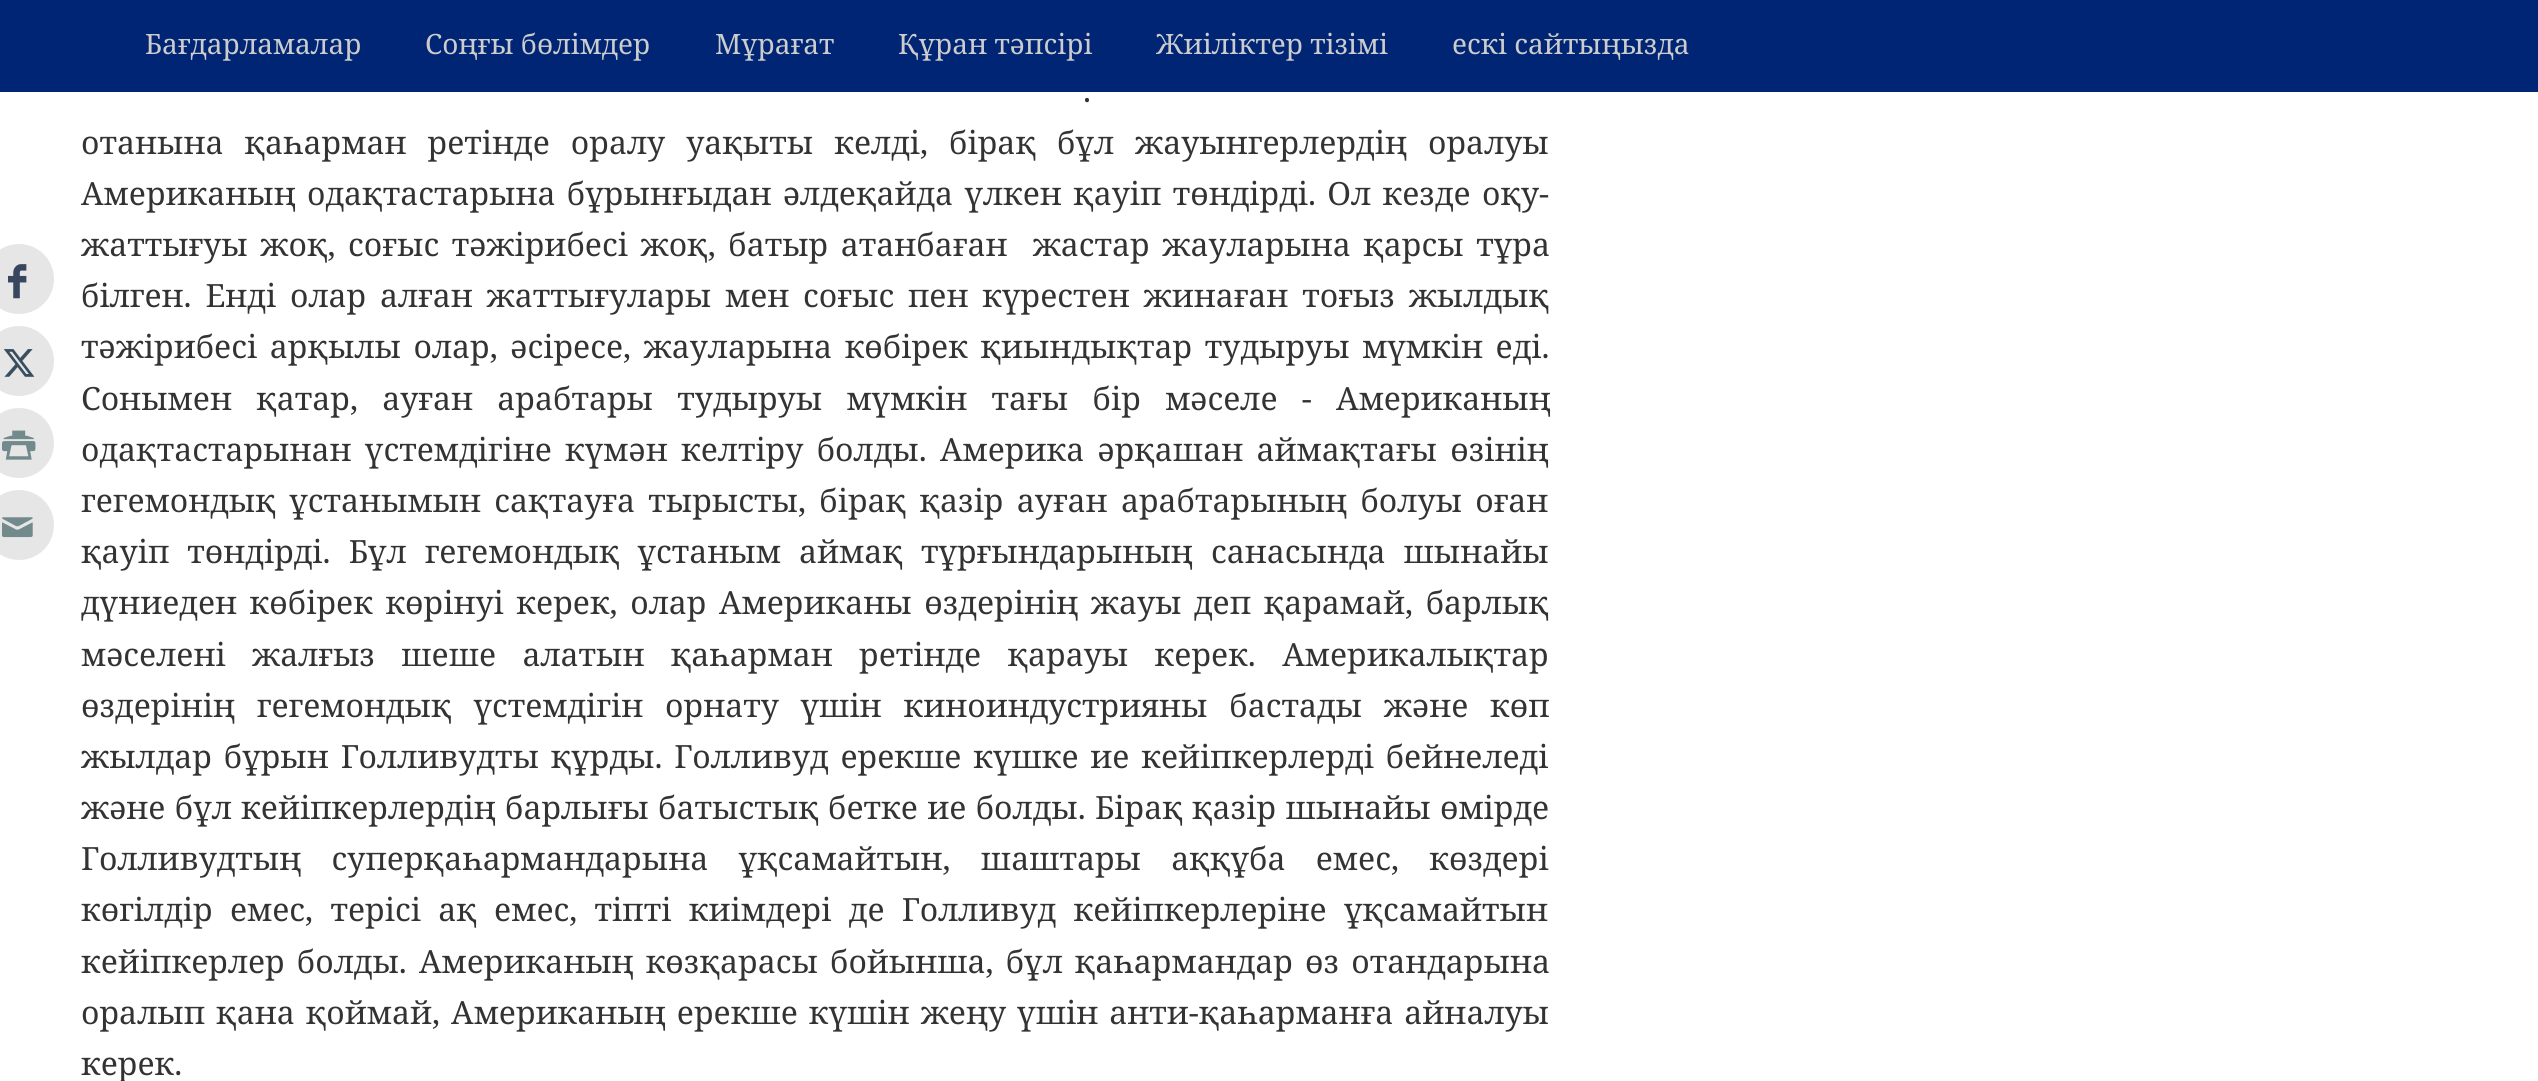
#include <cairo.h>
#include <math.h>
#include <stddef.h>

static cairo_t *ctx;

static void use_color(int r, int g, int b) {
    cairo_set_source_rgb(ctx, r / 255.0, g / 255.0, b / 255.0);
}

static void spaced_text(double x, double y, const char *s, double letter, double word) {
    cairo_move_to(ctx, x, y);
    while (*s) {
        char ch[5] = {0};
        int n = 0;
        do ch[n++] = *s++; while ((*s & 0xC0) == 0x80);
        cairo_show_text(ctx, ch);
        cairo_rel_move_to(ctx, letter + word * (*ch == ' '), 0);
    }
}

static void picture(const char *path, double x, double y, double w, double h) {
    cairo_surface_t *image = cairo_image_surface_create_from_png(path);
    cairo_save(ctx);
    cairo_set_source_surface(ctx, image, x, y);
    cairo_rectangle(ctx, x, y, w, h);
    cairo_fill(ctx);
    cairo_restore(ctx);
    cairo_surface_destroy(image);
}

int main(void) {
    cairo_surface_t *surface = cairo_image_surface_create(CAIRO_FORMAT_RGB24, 2538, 1081);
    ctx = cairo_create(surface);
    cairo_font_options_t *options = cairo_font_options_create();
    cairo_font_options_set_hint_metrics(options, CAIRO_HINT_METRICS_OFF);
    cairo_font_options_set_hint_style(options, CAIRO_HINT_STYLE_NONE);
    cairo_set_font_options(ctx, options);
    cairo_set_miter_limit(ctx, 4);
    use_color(255, 255, 255);
    cairo_paint(ctx);
    use_color(0, 37, 117);
    cairo_rectangle(ctx, 0, 0, 2538, 92);
    cairo_fill(ctx);
    cairo_select_font_face(ctx, "Noto Serif", CAIRO_FONT_SLANT_NORMAL, CAIRO_FONT_WEIGHT_NORMAL);
    cairo_set_font_size(ctx, 28);
    use_color(204, 204, 204);
    cairo_move_to(ctx, 145, 54);
    cairo_show_text(ctx, "Бағдарламалар");
    cairo_move_to(ctx, 425, 54);
    cairo_show_text(ctx, "Соңғы бөлімдер");
    cairo_move_to(ctx, 715, 54);
    cairo_show_text(ctx, "Мұрағат");
    cairo_move_to(ctx, 898, 54);
    cairo_show_text(ctx, "Құран тәпсірі");
    cairo_move_to(ctx, 1156, 54);
    cairo_show_text(ctx, "Жиіліктер тізімі");
    cairo_move_to(ctx, 1452, 54);
    cairo_show_text(ctx, "ескі сайтыңызда");
    use_color(230, 230, 230);
    cairo_new_path(ctx);
    cairo_arc(ctx, 19, 279, 35, 0, 2 * M_PI);
    cairo_fill(ctx);
    picture("img1.png", 8, 264, 19, 35);
    cairo_arc(ctx, 19, 361, 35, 0, 2 * M_PI);
    cairo_fill(ctx);
    picture("img2.png", 3, 349, 32, 28);
    cairo_arc(ctx, 19, 443, 35, 0, 2 * M_PI);
    cairo_fill(ctx);
    picture("img3.png", 2, 430, 34, 30);
    cairo_arc(ctx, 19, 525, 35, 0, 2 * M_PI);
    cairo_fill(ctx);
    picture("img4.png", 2, 517, 31, 21);
    cairo_set_font_size(ctx, 32);
    use_color(51, 51, 51);
    spaced_text(1083, 102, ".", 0, 5);
    spaced_text(81, 154, "отанына қаһарман ретінде оралу уақыты келді, бірақ бұл жауынгерлердің оралуы", 0, 12.75);
    spaced_text(81, 205, "Американың одақтастарына бұрынғыдан әлдеқайда үлкен қауіп төндірді. Ол кезде оқу-", 0, 3);
    spaced_text(81, 256, "жаттығуы жоқ, соғыс тәжірибесі жоқ, батыр атанбаған  жастар жауларына қарсы тұра", 0, 4.25);
    spaced_text(81, 307, "білген. Енді олар алған жаттығулары мен соғыс пен күрестен жинаған тоғыз жылдық", 0, 5.5);
    spaced_text(81, 358, "тәжірибесі арқылы олар, әсіресе, жауларына көбірек қиындықтар тудыруы мүмкін еді.", 0, 4.25);
    spaced_text(81, 410, "Сонымен қатар, ауған арабтары тудыруы мүмкін тағы бір мәселе - Американың", 0, 16);
    spaced_text(81, 461, "одақтастарынан үстемдігіне күмән келтіру болды. Америка әрқашан аймақтағы өзінің", 0, 5);
    spaced_text(81, 512, "гегемондық ұстанымын сақтауға тырысты, бірақ қазір ауған арабтарының болуы оған", 0, 5);
    spaced_text(81, 563, "қауіп төндірді. Бұл гегемондық ұстаным аймақ тұрғындарының санасында шынайы", 0, 9.75);
    spaced_text(81, 614, "дүниеден көбірек көрінуі керек, олар Американы өздерінің жауы деп қарамай, барлық", 0, 4.25);
    spaced_text(81, 666, "мәселені жалғыз шеше алатын қаһарман ретінде қарауы керек. Америкалықтар", 0, 18);
    spaced_text(81, 717, "өздерінің гегемондық үстемдігін орнату үшін киноиндустрияны бастады және көп", 0, 13.5);
    spaced_text(81, 768, "жылдар бұрын Голливудты құрды. Голливуд ерекше күшке ие кейіпкерлерді бейнеледі", 0, 3.5);
    spaced_text(81, 819, "және бұл кейіпкерлердің барлығы батыстық бетке ие болды. Бірақ қазір шынайы өмірде", 0, 1);
    spaced_text(81, 870, "Голливудтың суперқаһармандарына ұқсамайтын, шаштары аққұба емес, көздері", 0, 22);
    spaced_text(81, 921, "көгілдір емес, терісі ақ емес, тіпті киімдері де Голливуд кейіпкерлеріне ұқсамайтын", 0, 9);
    spaced_text(81, 973, "кейіпкерлер болды. Американың көзқарасы бойынша, бұл қаһармандар өз отандарына", 0, 3.75);
    spaced_text(81, 1024, "оралып қана қоймай, Американың ерекше күшін жеңу үшін анти-қаһарманға айналуы", 0, 2.75);
    cairo_move_to(ctx, 81, 1075);
    cairo_show_text(ctx, "керек.");
    cairo_surface_write_to_png(surface, "result.png");
    cairo_font_options_destroy(options);
    cairo_destroy(ctx);
    cairo_surface_destroy(surface);
    return 0;
}
